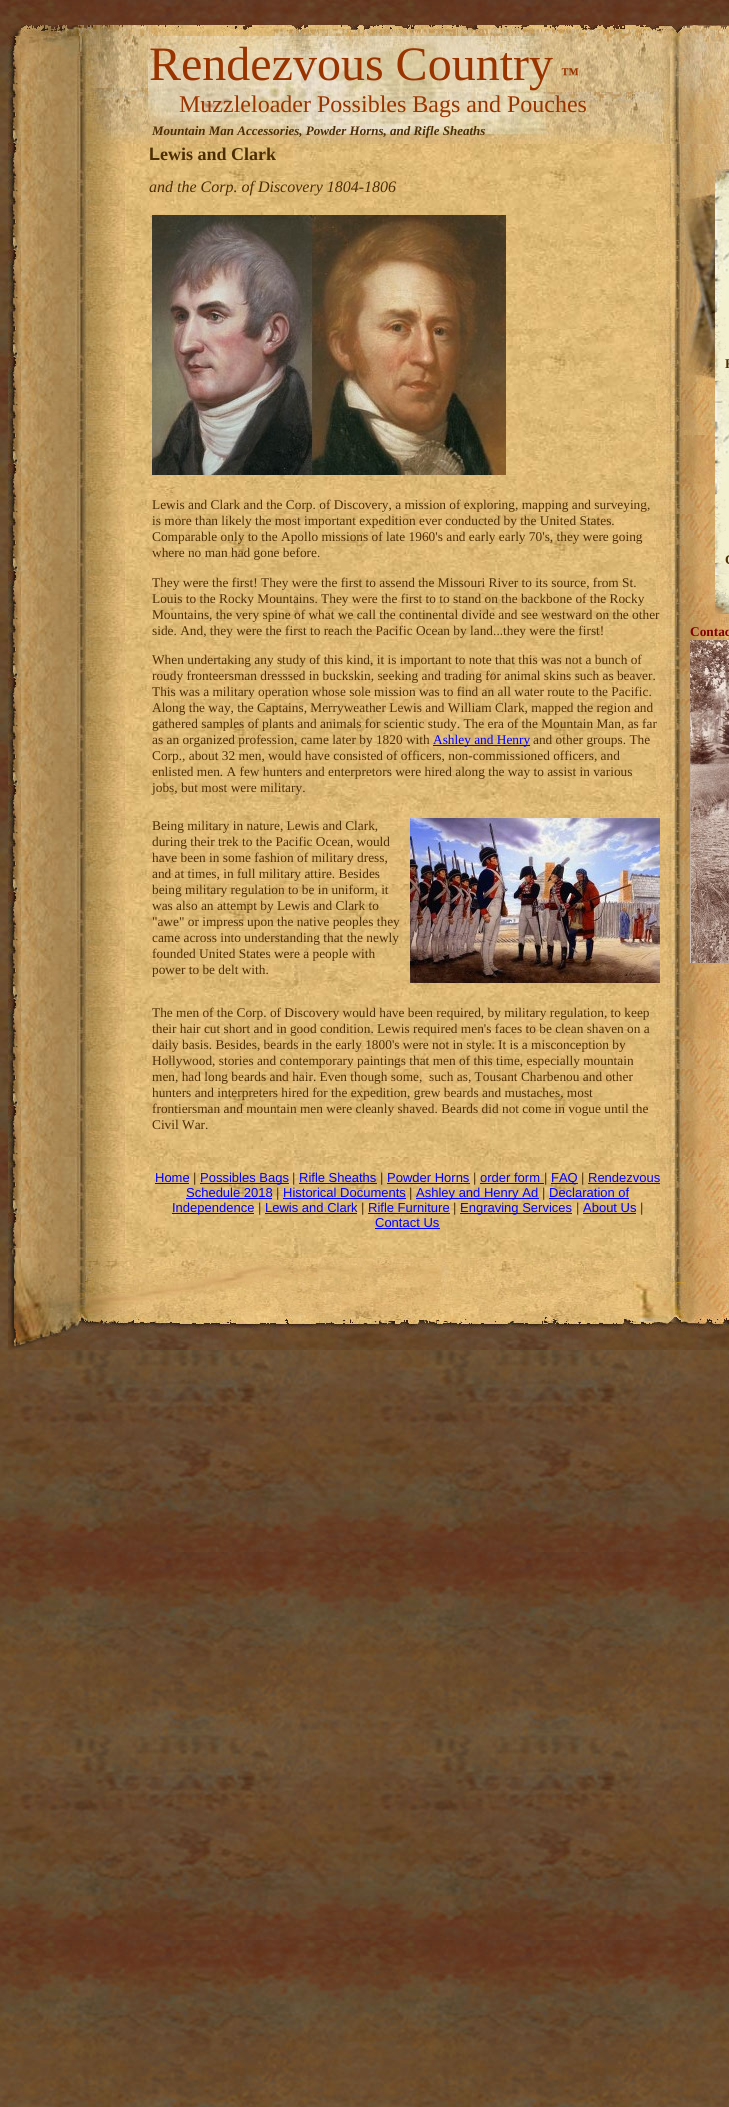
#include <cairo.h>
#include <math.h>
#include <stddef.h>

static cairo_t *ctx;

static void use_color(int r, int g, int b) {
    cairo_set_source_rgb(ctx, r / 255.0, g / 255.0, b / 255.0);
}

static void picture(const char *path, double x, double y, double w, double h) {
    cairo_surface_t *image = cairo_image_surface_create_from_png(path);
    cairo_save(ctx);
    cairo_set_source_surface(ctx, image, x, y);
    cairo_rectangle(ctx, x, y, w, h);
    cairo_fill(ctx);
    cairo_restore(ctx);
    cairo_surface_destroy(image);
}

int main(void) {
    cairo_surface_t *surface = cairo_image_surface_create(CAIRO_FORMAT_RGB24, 729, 2107);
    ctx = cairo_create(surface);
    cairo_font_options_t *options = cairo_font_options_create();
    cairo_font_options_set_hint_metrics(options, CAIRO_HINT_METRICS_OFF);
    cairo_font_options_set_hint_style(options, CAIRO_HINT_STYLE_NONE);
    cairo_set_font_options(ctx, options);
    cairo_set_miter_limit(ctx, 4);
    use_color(255, 255, 255);
    cairo_paint(ctx);
    picture("img1.png", 0, 0, 729, 2107);
    picture("img2.png", 8, 25, 13, 11);
    picture("img3.png", 21, 25, 708, 11);
    picture("img4.png", 8, 36, 13, 1212);
    picture("img5.png", 8, 1248, 13, 65);
    picture("img6.png", 21, 36, 708, 108);
    cairo_select_font_face(ctx, "Liberation Serif", CAIRO_FONT_SLANT_NORMAL, CAIRO_FONT_WEIGHT_NORMAL);
    cairo_set_font_size(ctx, 48);
    use_color(153, 51, 0);
    cairo_move_to(ctx, 149, 80);
    cairo_show_text(ctx, "Rendezvous Country");
    cairo_select_font_face(ctx, "Liberation Serif", CAIRO_FONT_SLANT_NORMAL, CAIRO_FONT_WEIGHT_BOLD);
    cairo_set_font_size(ctx, 18);
    cairo_move_to(ctx, 561, 80);
    cairo_show_text(ctx, "™");
    cairo_select_font_face(ctx, "Liberation Serif", CAIRO_FONT_SLANT_NORMAL, CAIRO_FONT_WEIGHT_NORMAL);
    cairo_set_font_size(ctx, 24);
    cairo_move_to(ctx, 179, 112);
    cairo_show_text(ctx, "Muzzleloader Possibles Bags and Pouches");
    cairo_select_font_face(ctx, "Liberation Serif", CAIRO_FONT_SLANT_ITALIC, CAIRO_FONT_WEIGHT_BOLD);
    cairo_set_font_size(ctx, 13);
    use_color(77, 45, 3);
    cairo_move_to(ctx, 152, 135);
    cairo_show_text(ctx, "Mountain Man Accessories, Powder Horns, and Rifle Sheaths");
    picture("img7.png", 21, 144, 708, 1013);
    cairo_select_font_face(ctx, "Liberation Sans", CAIRO_FONT_SLANT_NORMAL, CAIRO_FONT_WEIGHT_BOLD);
    cairo_set_font_size(ctx, 18);
    cairo_move_to(ctx, 149, 160);
    cairo_show_text(ctx, "L");
    cairo_select_font_face(ctx, "Liberation Serif", CAIRO_FONT_SLANT_NORMAL, CAIRO_FONT_WEIGHT_BOLD);
    cairo_move_to(ctx, 160, 160);
    cairo_show_text(ctx, "ewis and Clark");
    cairo_select_font_face(ctx, "Liberation Serif", CAIRO_FONT_SLANT_ITALIC, CAIRO_FONT_WEIGHT_NORMAL);
    cairo_set_font_size(ctx, 16);
    cairo_move_to(ctx, 149, 192);
    cairo_show_text(ctx, "and the Corp. of Discovery 1804-1806");
    picture("img8.png", 152, 215, 354, 260);
    cairo_select_font_face(ctx, "Liberation Serif", CAIRO_FONT_SLANT_NORMAL, CAIRO_FONT_WEIGHT_NORMAL);
    cairo_set_font_size(ctx, 13.35);
    cairo_move_to(ctx, 152, 509);
    cairo_show_text(ctx, "Lewis and Clark and the Corp. of Discovery, a mission of exploring, mapping and surveying,");
    cairo_move_to(ctx, 152, 525);
    cairo_show_text(ctx, "is more than likely the most important expedition ever conducted by the United States.");
    cairo_move_to(ctx, 152, 541);
    cairo_show_text(ctx, "Comparable only to the Apollo missions of late 1960's and early early 70's, they were going");
    cairo_move_to(ctx, 152, 557);
    cairo_show_text(ctx, "where no man had gone before.");
    cairo_move_to(ctx, 152, 587);
    cairo_show_text(ctx, "They were the first! They were the first to assend the Missouri River to its source, from St.");
    cairo_move_to(ctx, 152, 603);
    cairo_show_text(ctx, "Louis to the Rocky Mountains. They were the first to to stand on the backbone of the Rocky");
    cairo_move_to(ctx, 152, 619);
    cairo_show_text(ctx, "Mountains, the very spine of what we call the continental divide and see westward on the other");
    cairo_move_to(ctx, 152, 635);
    cairo_show_text(ctx, "side. And, they were the first to reach the Pacific Ocean by land...they were the first!");
    cairo_move_to(ctx, 152, 664);
    cairo_show_text(ctx, "When undertaking any study of this kind, it is important to note that this was not a bunch of");
    cairo_move_to(ctx, 152, 680);
    cairo_show_text(ctx, "roudy fronteersman dresssed in buckskin, seeking and trading for animal skins such as beaver.");
    cairo_move_to(ctx, 152, 696);
    cairo_show_text(ctx, "This was a military operation whose sole mission was to find an all water route to the Pacific.");
    cairo_move_to(ctx, 152, 712);
    cairo_show_text(ctx, "Along the way, the Captains, Merryweather Lewis and William Clark, mapped the region and");
    cairo_move_to(ctx, 152, 728);
    cairo_show_text(ctx, "gathered samples of plants and animals for scientic study. The era of the Mountain Man, as far");
    cairo_move_to(ctx, 152, 744);
    cairo_show_text(ctx, "as an organized profession, came later by 1820 with");
    use_color(0, 0, 255);
    cairo_rectangle(ctx, 433, 745, 97, 1);
    cairo_fill(ctx);
    cairo_move_to(ctx, 433, 744);
    cairo_show_text(ctx, "Ashley and Henry");
    use_color(77, 45, 3);
    cairo_move_to(ctx, 533, 744);
    cairo_show_text(ctx, "and other groups. The");
    cairo_move_to(ctx, 152, 760);
    cairo_show_text(ctx, "Corp., about 32 men, would have consisted of officers, non-commissioned officers, and");
    cairo_move_to(ctx, 152, 776);
    cairo_show_text(ctx, "enlisted men. A few hunters and enterpretors were hired along the way to assist in various");
    cairo_move_to(ctx, 152, 792);
    cairo_show_text(ctx, "jobs, but most were military.");
    cairo_move_to(ctx, 152, 830);
    cairo_show_text(ctx, "Being military in nature, Lewis and Clark,");
    cairo_move_to(ctx, 152, 846);
    cairo_show_text(ctx, "during their trek to the Pacific Ocean, would");
    cairo_move_to(ctx, 152, 862);
    cairo_show_text(ctx, "have been in some fashion of military dress,");
    cairo_move_to(ctx, 152, 878);
    cairo_show_text(ctx, "and at times, in full military attire. Besides");
    cairo_move_to(ctx, 152, 894);
    cairo_show_text(ctx, "being military regulation to be in uniform, it");
    cairo_move_to(ctx, 152, 910);
    cairo_show_text(ctx, "was also an attempt by Lewis and Clark to");
    cairo_move_to(ctx, 152, 926);
    cairo_show_text(ctx, "\"awe\" or impress upon the native peoples they");
    cairo_move_to(ctx, 152, 942);
    cairo_show_text(ctx, "came across into understanding that the newly");
    cairo_move_to(ctx, 152, 958);
    cairo_show_text(ctx, "founded United States were a people with");
    cairo_move_to(ctx, 152, 974);
    cairo_show_text(ctx, "power to be delt with.");
    picture("img9.png", 410, 818, 250, 165);
    cairo_move_to(ctx, 152, 1017);
    cairo_show_text(ctx, "The men of the Corp. of Discovery would have been required, by military regulation, to keep");
    cairo_move_to(ctx, 152, 1033);
    cairo_show_text(ctx, "their hair cut short and in good condition. Lewis required men's faces to be clean shaven on a");
    cairo_move_to(ctx, 152, 1049);
    cairo_show_text(ctx, "daily basis. Besides, beards in the early 1800's were not in style. It is a misconception by");
    cairo_move_to(ctx, 152, 1065);
    cairo_show_text(ctx, "Hollywood, stories and contemporary paintings that men of this time, especially mountain");
    cairo_move_to(ctx, 152, 1081);
    cairo_show_text(ctx, "men, had long beards and hair. Even though some,  such as, Tousant Charbenou and other");
    cairo_move_to(ctx, 152, 1097);
    cairo_show_text(ctx, "hunters and interpreters hired for the expedition, grew beards and mustaches, most");
    cairo_move_to(ctx, 152, 1113);
    cairo_show_text(ctx, "frontiersman and mountain men were cleanly shaved. Beards did not come in vogue until the");
    cairo_move_to(ctx, 152, 1129);
    cairo_show_text(ctx, "Civil War.");
    picture("img10.png", 670, 144, 59, 291);
    picture("img11.png", 715, 575, 14, 39);
    picture("img12.png", 715, 169, 14, 30);
    picture("img13.png", 715, 199, 14, 376);
    cairo_select_font_face(ctx, "Liberation Serif", CAIRO_FONT_SLANT_NORMAL, CAIRO_FONT_WEIGHT_BOLD);
    cairo_move_to(ctx, 725, 368);
    cairo_show_text(ctx, "F");
    cairo_move_to(ctx, 725, 564);
    cairo_show_text(ctx, "C");
    use_color(128, 0, 0);
    cairo_move_to(ctx, 690, 636);
    cairo_show_text(ctx, "Contac");
    picture("img14.png", 690, 640, 39, 323);
    picture("img15.png", 21, 1157, 708, 101);
    cairo_select_font_face(ctx, "Liberation Sans", CAIRO_FONT_SLANT_NORMAL, CAIRO_FONT_WEIGHT_NORMAL);
    cairo_set_font_size(ctx, 13);
    use_color(0, 0, 255);
    cairo_move_to(ctx, 155, 1182);
    cairo_show_text(ctx, "Home");
    cairo_rectangle(ctx, 155, 1183, 34, 1);
    cairo_fill(ctx);
    use_color(77, 45, 3);
    cairo_move_to(ctx, 193, 1182);
    cairo_show_text(ctx, "|");
    use_color(0, 0, 255);
    cairo_rectangle(ctx, 200, 1183, 89, 1);
    cairo_fill(ctx);
    cairo_move_to(ctx, 200, 1182);
    cairo_show_text(ctx, "Possibles Bags");
    use_color(77, 45, 3);
    cairo_move_to(ctx, 292, 1182);
    cairo_show_text(ctx, "|");
    use_color(0, 0, 255);
    cairo_move_to(ctx, 299, 1182);
    cairo_show_text(ctx, "Rifle Sheaths");
    cairo_rectangle(ctx, 299, 1183, 78, 1);
    cairo_fill(ctx);
    use_color(77, 45, 3);
    cairo_move_to(ctx, 380, 1182);
    cairo_show_text(ctx, "|");
    use_color(0, 0, 255);
    cairo_move_to(ctx, 387, 1182);
    cairo_show_text(ctx, "Powder Horns");
    cairo_rectangle(ctx, 387, 1183, 83, 1);
    cairo_fill(ctx);
    use_color(77, 45, 3);
    cairo_move_to(ctx, 473, 1182);
    cairo_show_text(ctx, "|");
    use_color(0, 0, 255);
    cairo_move_to(ctx, 480, 1182);
    cairo_show_text(ctx, "order form");
    use_color(77, 45, 3);
    cairo_move_to(ctx, 544, 1182);
    cairo_show_text(ctx, "|");
    use_color(0, 0, 255);
    cairo_rectangle(ctx, 480, 1183, 64, 1);
    cairo_fill(ctx);
    cairo_rectangle(ctx, 551, 1183, 27, 1);
    cairo_fill(ctx);
    cairo_move_to(ctx, 551, 1182);
    cairo_show_text(ctx, "FAQ");
    use_color(77, 45, 3);
    cairo_move_to(ctx, 581, 1182);
    cairo_show_text(ctx, "|");
    use_color(0, 0, 255);
    cairo_move_to(ctx, 588, 1182);
    cairo_show_text(ctx, "Rendezvous");
    cairo_rectangle(ctx, 588, 1183, 72, 1);
    cairo_fill(ctx);
    cairo_move_to(ctx, 186, 1197);
    cairo_show_text(ctx, "Schedule 2018");
    cairo_rectangle(ctx, 186, 1198, 86, 1);
    cairo_fill(ctx);
    use_color(77, 45, 3);
    cairo_move_to(ctx, 276, 1197);
    cairo_show_text(ctx, "|");
    use_color(0, 0, 255);
    cairo_move_to(ctx, 283, 1197);
    cairo_show_text(ctx, "Historical Documents");
    cairo_rectangle(ctx, 283, 1198, 123, 1);
    cairo_fill(ctx);
    use_color(77, 45, 3);
    cairo_move_to(ctx, 409, 1197);
    cairo_show_text(ctx, "|");
    use_color(0, 0, 255);
    cairo_rectangle(ctx, 416, 1198, 123, 1);
    cairo_fill(ctx);
    cairo_move_to(ctx, 416, 1197);
    cairo_show_text(ctx, "Ashley and Henry Ad");
    use_color(77, 45, 3);
    cairo_move_to(ctx, 542, 1197);
    cairo_show_text(ctx, "|");
    use_color(0, 0, 255);
    cairo_move_to(ctx, 549, 1197);
    cairo_show_text(ctx, "Declaration of");
    cairo_rectangle(ctx, 549, 1198, 80, 1);
    cairo_fill(ctx);
    cairo_rectangle(ctx, 172, 1213, 82, 1);
    cairo_fill(ctx);
    cairo_move_to(ctx, 172, 1212);
    cairo_show_text(ctx, "Independence");
    use_color(77, 45, 3);
    cairo_move_to(ctx, 258, 1212);
    cairo_show_text(ctx, "|");
    use_color(0, 0, 255);
    cairo_move_to(ctx, 265, 1212);
    cairo_show_text(ctx, "Lewis and Clark");
    cairo_rectangle(ctx, 265, 1213, 92, 1);
    cairo_fill(ctx);
    use_color(77, 45, 3);
    cairo_move_to(ctx, 361, 1212);
    cairo_show_text(ctx, "|");
    use_color(0, 0, 255);
    cairo_move_to(ctx, 368, 1212);
    cairo_show_text(ctx, "Rifle Furniture");
    cairo_rectangle(ctx, 368, 1213, 82, 1);
    cairo_fill(ctx);
    use_color(77, 45, 3);
    cairo_move_to(ctx, 453, 1212);
    cairo_show_text(ctx, "|");
    use_color(0, 0, 255);
    cairo_rectangle(ctx, 460, 1213, 112, 1);
    cairo_fill(ctx);
    cairo_move_to(ctx, 460, 1212);
    cairo_show_text(ctx, "Engraving Services");
    use_color(77, 45, 3);
    cairo_move_to(ctx, 576, 1212);
    cairo_show_text(ctx, "|");
    use_color(0, 0, 255);
    cairo_move_to(ctx, 583, 1212);
    cairo_show_text(ctx, "About Us");
    cairo_rectangle(ctx, 583, 1213, 53, 1);
    cairo_fill(ctx);
    use_color(77, 45, 3);
    cairo_move_to(ctx, 640, 1212);
    cairo_show_text(ctx, "|");
    use_color(0, 0, 255);
    cairo_move_to(ctx, 375, 1227);
    cairo_show_text(ctx, "Contact Us");
    cairo_rectangle(ctx, 375, 1228, 65, 1);
    cairo_fill(ctx);
    picture("img16.png", 21, 1258, 708, 55);
    picture("img17.png", 8, 1313, 13, 37);
    picture("img18.png", 21, 1313, 708, 37);
    cairo_surface_write_to_png(surface, "result.png");
    cairo_font_options_destroy(options);
    cairo_destroy(ctx);
    cairo_surface_destroy(surface);
    return 0;
}
